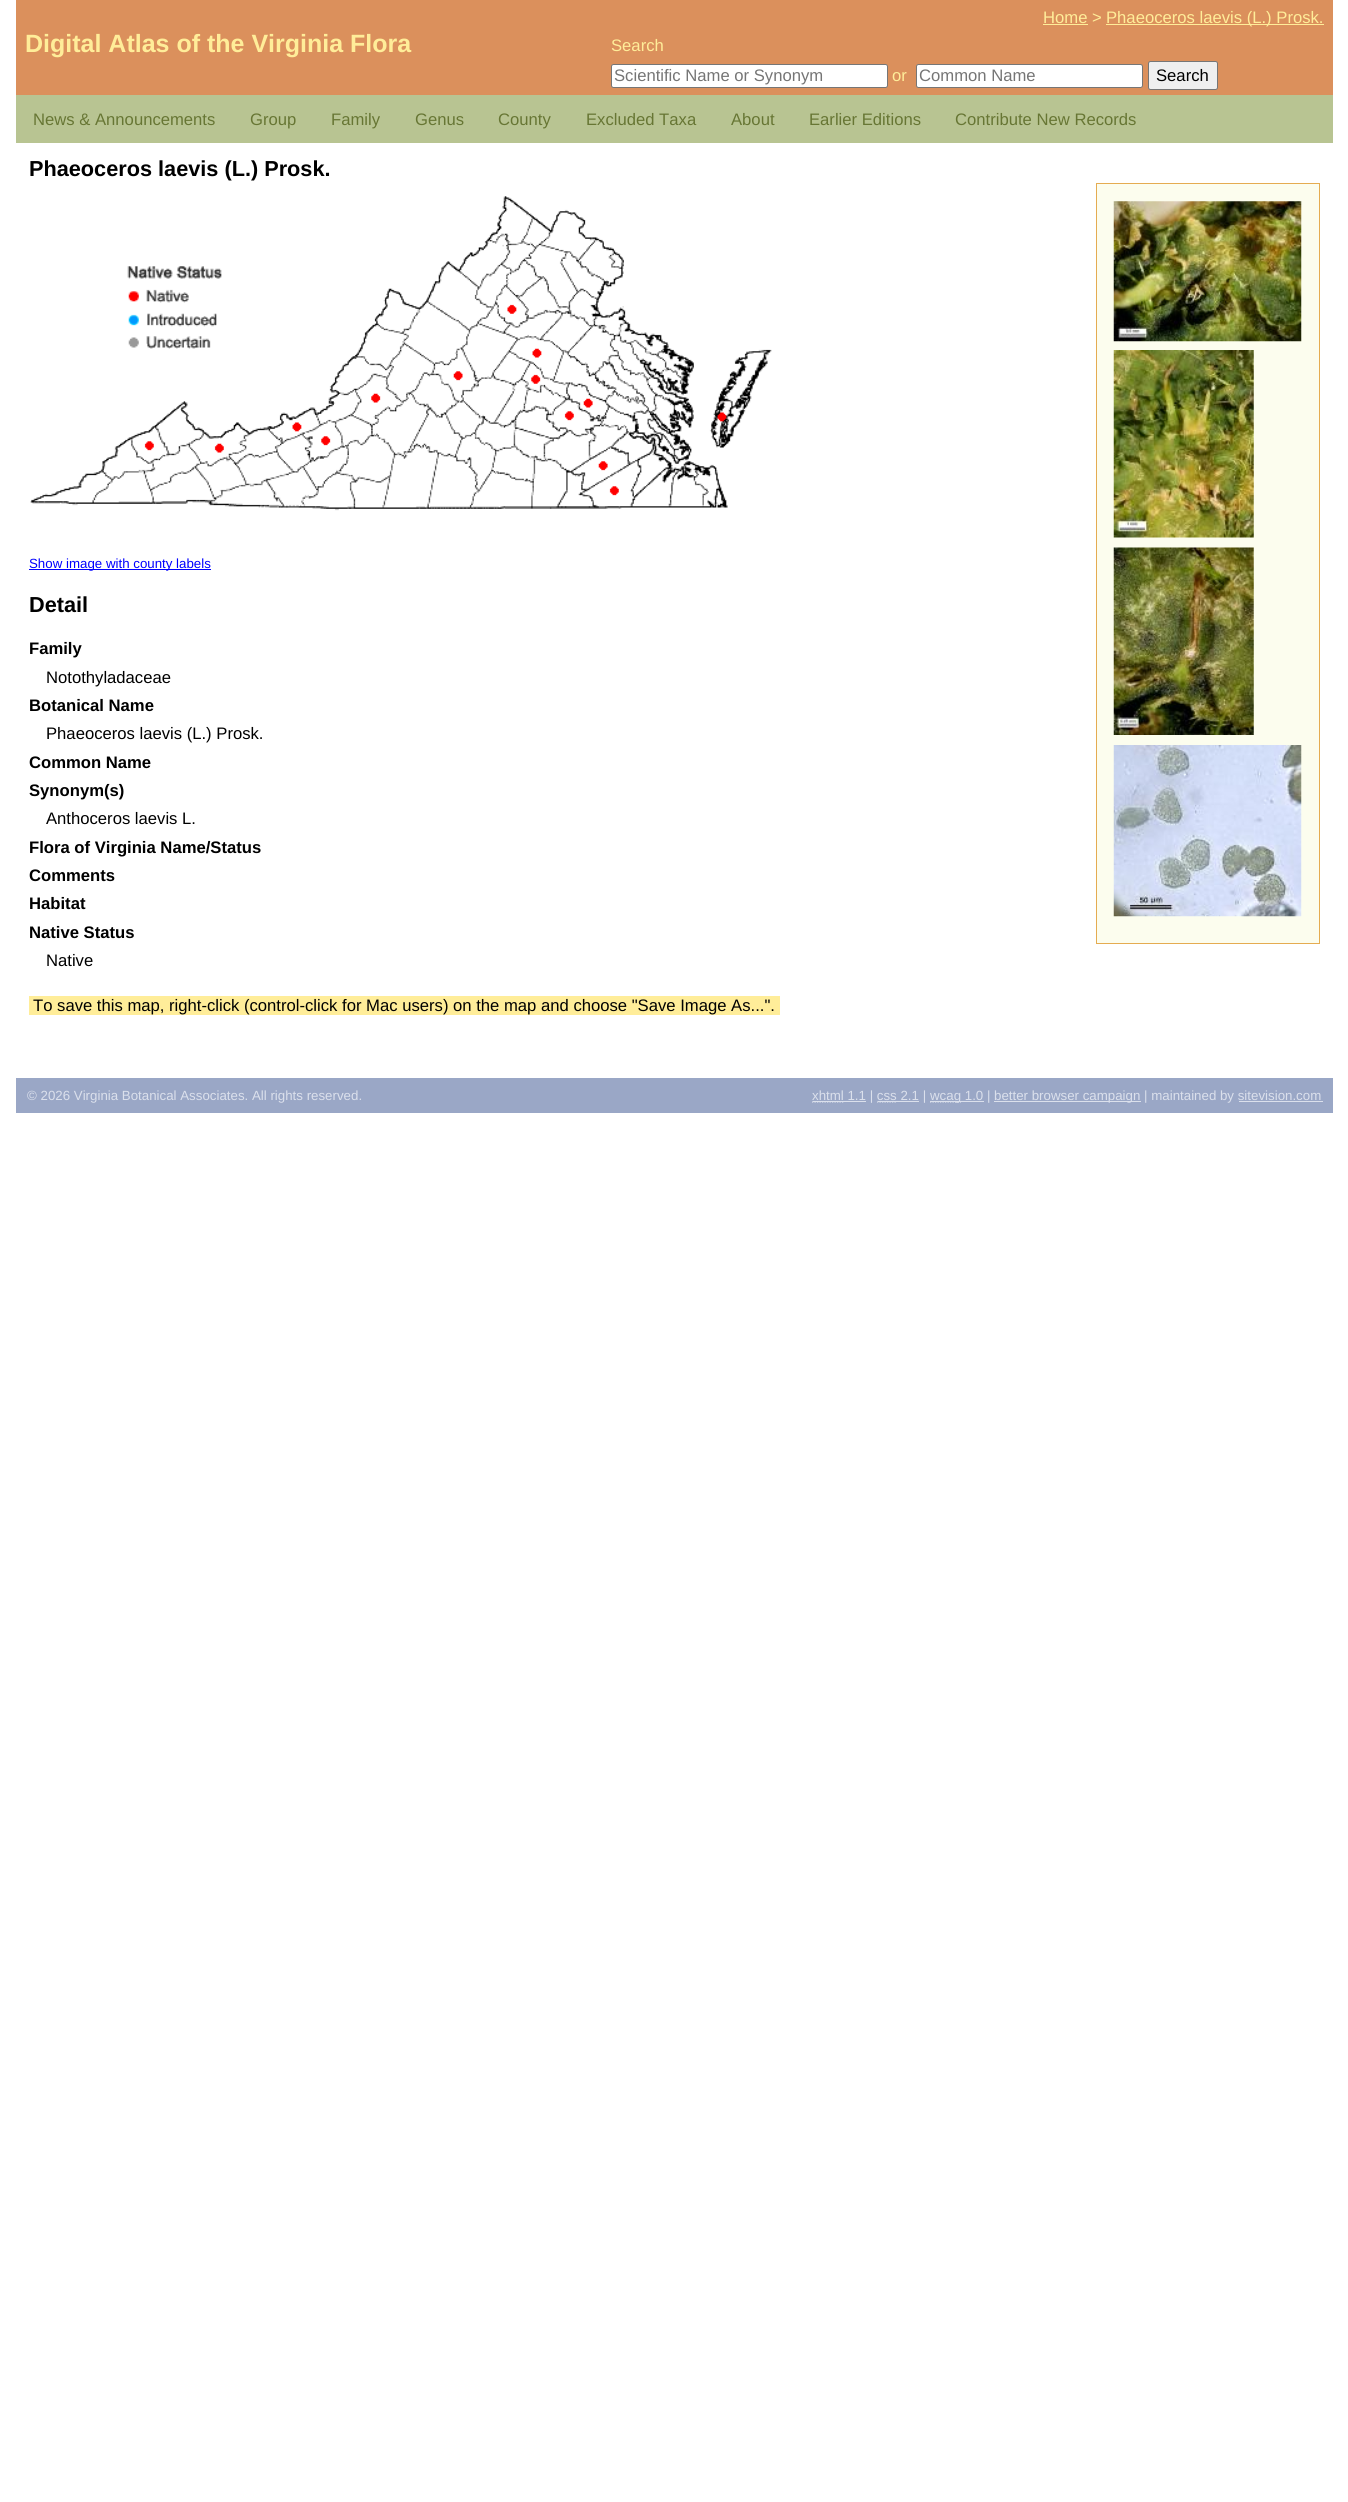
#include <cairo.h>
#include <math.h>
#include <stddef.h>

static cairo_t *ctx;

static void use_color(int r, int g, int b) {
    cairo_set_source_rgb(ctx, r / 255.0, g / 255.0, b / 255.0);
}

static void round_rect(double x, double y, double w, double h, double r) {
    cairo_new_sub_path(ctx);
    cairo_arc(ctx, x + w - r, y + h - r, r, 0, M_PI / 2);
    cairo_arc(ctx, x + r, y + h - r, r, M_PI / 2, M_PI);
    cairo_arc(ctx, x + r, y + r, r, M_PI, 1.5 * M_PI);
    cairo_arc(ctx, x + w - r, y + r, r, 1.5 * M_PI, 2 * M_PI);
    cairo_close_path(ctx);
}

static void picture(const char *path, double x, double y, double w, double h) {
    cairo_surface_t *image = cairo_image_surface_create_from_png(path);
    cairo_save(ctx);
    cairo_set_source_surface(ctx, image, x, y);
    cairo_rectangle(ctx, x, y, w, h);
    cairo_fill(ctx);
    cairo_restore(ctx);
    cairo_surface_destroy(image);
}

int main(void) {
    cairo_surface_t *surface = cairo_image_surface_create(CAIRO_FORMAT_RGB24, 1348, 2502);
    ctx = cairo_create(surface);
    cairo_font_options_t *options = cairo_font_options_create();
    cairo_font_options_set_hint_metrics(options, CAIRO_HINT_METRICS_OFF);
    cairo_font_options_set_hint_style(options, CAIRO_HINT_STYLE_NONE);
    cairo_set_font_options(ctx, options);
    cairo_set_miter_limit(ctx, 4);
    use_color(255, 255, 255);
    cairo_paint(ctx);
    use_color(219, 144, 92);
    cairo_rectangle(ctx, 16, 0, 1317, 95);
    cairo_fill(ctx);
    cairo_select_font_face(ctx, "Liberation Sans", CAIRO_FONT_SLANT_NORMAL, CAIRO_FONT_WEIGHT_NORMAL);
    cairo_set_font_size(ctx, 16.65);
    use_color(255, 237, 153);
    cairo_move_to(ctx, 1043, 23);
    cairo_show_text(ctx, "Home >");
    cairo_rectangle(ctx, 1043, 24, 45, 1);
    cairo_fill(ctx);
    cairo_rectangle(ctx, 1106, 24, 218, 1);
    cairo_fill(ctx);
    cairo_move_to(ctx, 1106, 23);
    cairo_show_text(ctx, "Phaeoceros laevis (L.) Prosk.");
    cairo_select_font_face(ctx, "Liberation Sans", CAIRO_FONT_SLANT_NORMAL, CAIRO_FONT_WEIGHT_BOLD);
    cairo_set_font_size(ctx, 25);
    cairo_move_to(ctx, 25, 52);
    cairo_show_text(ctx, "Digital Atlas of the Virginia Flora");
    cairo_select_font_face(ctx, "Liberation Sans", CAIRO_FONT_SLANT_NORMAL, CAIRO_FONT_WEIGHT_NORMAL);
    cairo_set_font_size(ctx, 16.65);
    cairo_move_to(ctx, 611, 51);
    cairo_show_text(ctx, "Search");
    use_color(255, 255, 255);
    round_rect(611.5, 64.5, 276, 23, 2);
    cairo_fill_preserve(ctx);
    use_color(118, 118, 118);
    cairo_set_line_width(ctx, 1);
    cairo_stroke(ctx);
    use_color(117, 117, 117);
    cairo_move_to(ctx, 614, 81);
    cairo_show_text(ctx, "Scientific Name or Synonym");
    use_color(255, 237, 153);
    cairo_move_to(ctx, 892, 81);
    cairo_show_text(ctx, "or");
    use_color(255, 255, 255);
    round_rect(916.5, 64.5, 226, 23, 2);
    cairo_fill_preserve(ctx);
    use_color(118, 118, 118);
    cairo_stroke(ctx);
    use_color(117, 117, 117);
    cairo_move_to(ctx, 919, 81);
    cairo_show_text(ctx, "Common Name");
    use_color(239, 239, 239);
    round_rect(1148.5, 61.5, 69, 28, 2);
    cairo_fill_preserve(ctx);
    use_color(118, 118, 118);
    cairo_stroke(ctx);
    use_color(0, 0, 0);
    cairo_move_to(ctx, 1156, 81);
    cairo_show_text(ctx, "Search");
    use_color(184, 196, 146);
    cairo_rectangle(ctx, 16, 95, 1317, 48);
    cairo_fill(ctx);
    use_color(103, 118, 52);
    cairo_move_to(ctx, 33, 125);
    cairo_show_text(ctx, "News & Announcements");
    cairo_move_to(ctx, 250, 125);
    cairo_show_text(ctx, "Group");
    cairo_move_to(ctx, 331, 125);
    cairo_show_text(ctx, "Family");
    cairo_move_to(ctx, 415, 125);
    cairo_show_text(ctx, "Genus");
    cairo_move_to(ctx, 498, 125);
    cairo_show_text(ctx, "County");
    cairo_move_to(ctx, 586, 125);
    cairo_show_text(ctx, "Excluded Taxa");
    cairo_move_to(ctx, 731, 125);
    cairo_show_text(ctx, "About");
    cairo_move_to(ctx, 809, 125);
    cairo_show_text(ctx, "Earlier Editions");
    cairo_move_to(ctx, 955, 125);
    cairo_show_text(ctx, "Contribute New Records");
    cairo_select_font_face(ctx, "Liberation Sans", CAIRO_FONT_SLANT_NORMAL, CAIRO_FONT_WEIGHT_BOLD);
    cairo_set_font_size(ctx, 21.7);
    use_color(0, 0, 0);
    cairo_move_to(ctx, 29, 176);
    cairo_show_text(ctx, "Phaeoceros laevis (L.) Prosk.");
    picture("img1.png", 30, 196, 742, 315);
    use_color(252, 253, 238);
    cairo_rectangle(ctx, 1096.5, 183.5, 223, 760);
    cairo_fill_preserve(ctx);
    use_color(229, 172, 81);
    cairo_stroke(ctx);
    picture("img2.png", 1113, 201, 189, 141);
    picture("img3.png", 1113, 350, 141, 188);
    picture("img4.png", 1113, 547, 141, 188);
    picture("img5.png", 1113, 745, 189, 172);
    use_color(0, 0, 255);
    cairo_rectangle(ctx, 29, 569, 182, 1);
    cairo_fill(ctx);
    cairo_select_font_face(ctx, "Liberation Sans", CAIRO_FONT_SLANT_NORMAL, CAIRO_FONT_WEIGHT_NORMAL);
    cairo_set_font_size(ctx, 13.3);
    cairo_move_to(ctx, 29, 568);
    cairo_show_text(ctx, "Show image with county labels");
    cairo_select_font_face(ctx, "Liberation Sans", CAIRO_FONT_SLANT_NORMAL, CAIRO_FONT_WEIGHT_BOLD);
    cairo_set_font_size(ctx, 21.7);
    use_color(0, 0, 0);
    cairo_move_to(ctx, 29, 612);
    cairo_show_text(ctx, "Detail");
    cairo_set_font_size(ctx, 16.65);
    cairo_move_to(ctx, 29, 654);
    cairo_show_text(ctx, "Family");
    cairo_select_font_face(ctx, "Liberation Sans", CAIRO_FONT_SLANT_NORMAL, CAIRO_FONT_WEIGHT_NORMAL);
    cairo_move_to(ctx, 46, 683);
    cairo_show_text(ctx, "Notothyladaceae");
    cairo_select_font_face(ctx, "Liberation Sans", CAIRO_FONT_SLANT_NORMAL, CAIRO_FONT_WEIGHT_BOLD);
    cairo_move_to(ctx, 29, 711);
    cairo_show_text(ctx, "Botanical Name");
    cairo_select_font_face(ctx, "Liberation Sans", CAIRO_FONT_SLANT_NORMAL, CAIRO_FONT_WEIGHT_NORMAL);
    cairo_move_to(ctx, 46, 739);
    cairo_show_text(ctx, "Phaeoceros laevis (L.) Prosk.");
    cairo_select_font_face(ctx, "Liberation Sans", CAIRO_FONT_SLANT_NORMAL, CAIRO_FONT_WEIGHT_BOLD);
    cairo_move_to(ctx, 29, 768);
    cairo_show_text(ctx, "Common Name");
    cairo_move_to(ctx, 29, 796);
    cairo_show_text(ctx, "Synonym(s)");
    cairo_select_font_face(ctx, "Liberation Sans", CAIRO_FONT_SLANT_NORMAL, CAIRO_FONT_WEIGHT_NORMAL);
    cairo_move_to(ctx, 46, 824);
    cairo_show_text(ctx, "Anthoceros laevis L.");
    cairo_select_font_face(ctx, "Liberation Sans", CAIRO_FONT_SLANT_NORMAL, CAIRO_FONT_WEIGHT_BOLD);
    cairo_move_to(ctx, 29, 853);
    cairo_show_text(ctx, "Flora of Virginia Name/Status");
    cairo_move_to(ctx, 29, 881);
    cairo_show_text(ctx, "Comments");
    cairo_move_to(ctx, 29, 909);
    cairo_show_text(ctx, "Habitat");
    cairo_move_to(ctx, 29, 938);
    cairo_show_text(ctx, "Native Status");
    cairo_select_font_face(ctx, "Liberation Sans", CAIRO_FONT_SLANT_NORMAL, CAIRO_FONT_WEIGHT_NORMAL);
    cairo_move_to(ctx, 46, 966);
    cairo_show_text(ctx, "Native");
    use_color(255, 237, 153);
    cairo_rectangle(ctx, 29, 996, 751, 19);
    cairo_fill(ctx);
    use_color(0, 0, 0);
    cairo_move_to(ctx, 33, 1011);
    cairo_show_text(ctx, "To save this map, right-click (control-click for Mac users) on the map and choose \"Save Image As...\".");
    use_color(154, 167, 198);
    cairo_rectangle(ctx, 16, 1078, 1317, 35);
    cairo_fill(ctx);
    cairo_set_font_size(ctx, 13.3);
    use_color(219, 224, 236);
    cairo_move_to(ctx, 27, 1100);
    cairo_show_text(ctx, "© 2026 Virginia Botanical Associates. All rights reserved.");
    cairo_new_path(ctx);
    cairo_move_to(ctx, 812, 1102);
    cairo_line_to(ctx, 844, 1102);
    cairo_set_line_width(ctx, 1.2);
    cairo_set_dash(ctx, (double[]){1.25, 1.25}, 2, 0);
    cairo_stroke(ctx);
    cairo_rectangle(ctx, 813, 1101, 53, 1);
    cairo_fill(ctx);
    cairo_move_to(ctx, 812, 1100);
    cairo_show_text(ctx, "xhtml 1.1 | css 2.1 |");
    cairo_new_path(ctx);
    cairo_move_to(ctx, 930, 1102);
    cairo_line_to(ctx, 961, 1102);
    cairo_stroke(ctx);
    cairo_rectangle(ctx, 930, 1101, 54, 1);
    cairo_fill(ctx);
    cairo_move_to(ctx, 930, 1100);
    cairo_show_text(ctx, "wcag 1.0 |");
    cairo_rectangle(ctx, 994, 1101, 147, 1);
    cairo_fill(ctx);
    cairo_move_to(ctx, 994, 1100);
    cairo_show_text(ctx, "better browser campaign | maintained by sitevision.com");
    cairo_new_path(ctx);
    cairo_move_to(ctx, 877, 1102);
    cairo_line_to(ctx, 897, 1102);
    cairo_stroke(ctx);
    cairo_rectangle(ctx, 878, 1101, 41, 1);
    cairo_fill(ctx);
    cairo_rectangle(ctx, 1239, 1101, 84, 1);
    cairo_fill(ctx);
    cairo_surface_write_to_png(surface, "result.png");
    cairo_font_options_destroy(options);
    cairo_destroy(ctx);
    cairo_surface_destroy(surface);
    return 0;
}
